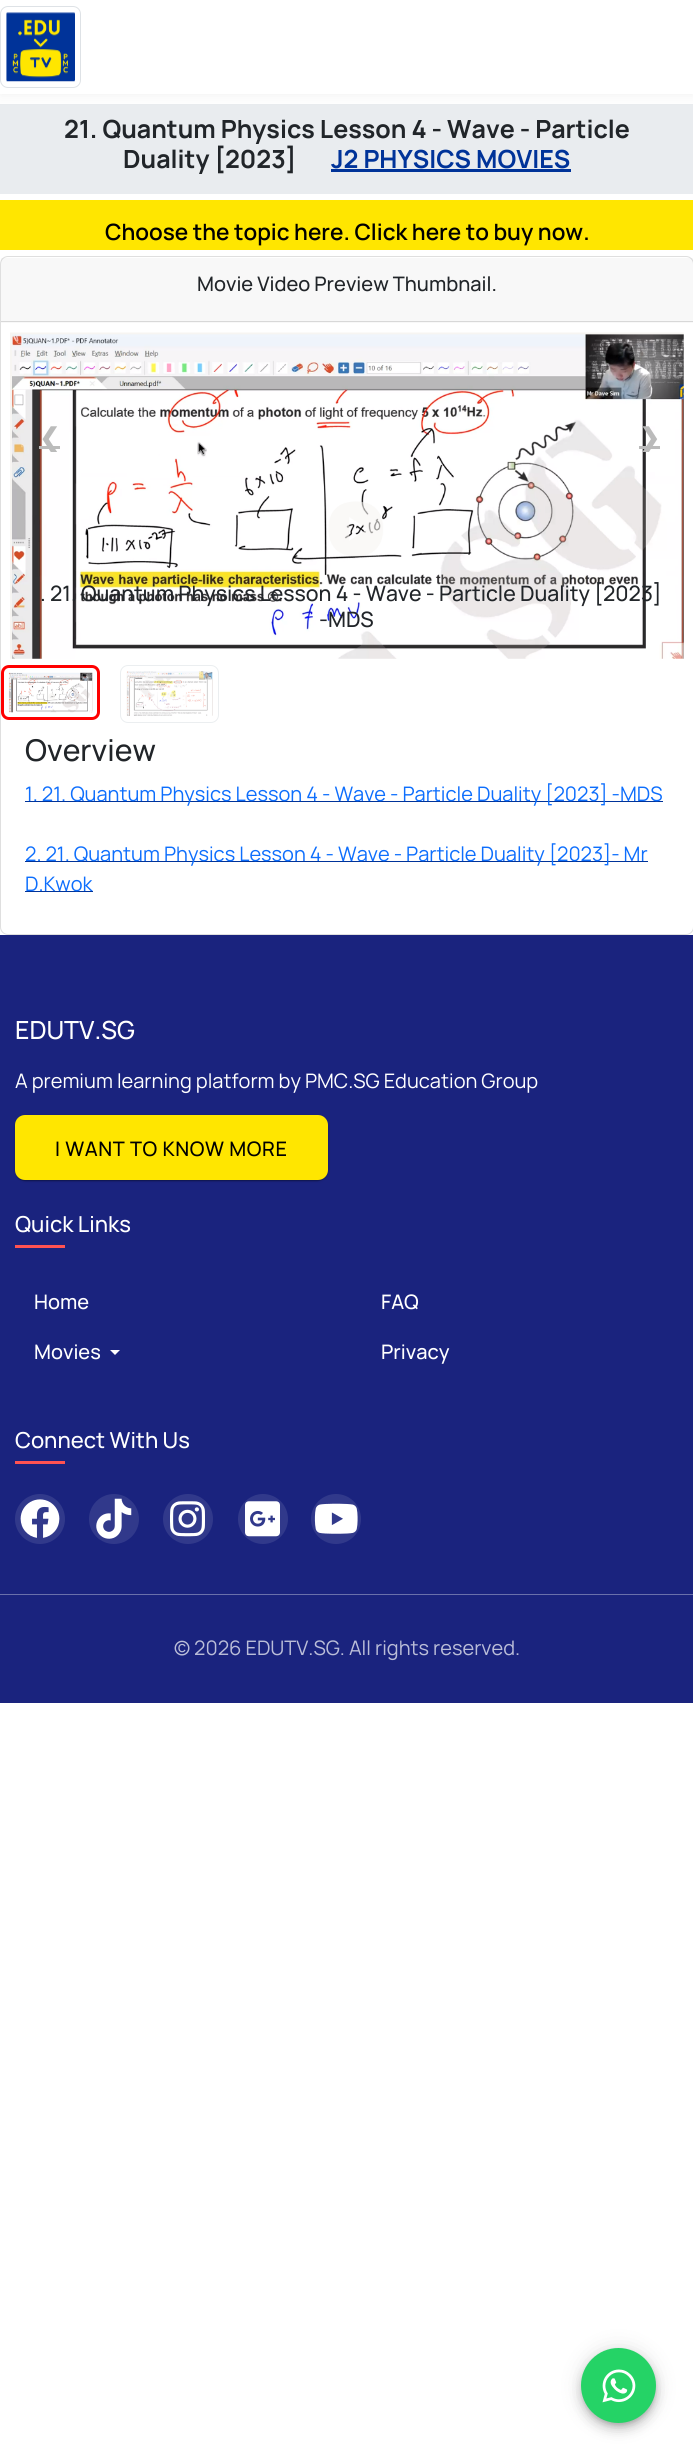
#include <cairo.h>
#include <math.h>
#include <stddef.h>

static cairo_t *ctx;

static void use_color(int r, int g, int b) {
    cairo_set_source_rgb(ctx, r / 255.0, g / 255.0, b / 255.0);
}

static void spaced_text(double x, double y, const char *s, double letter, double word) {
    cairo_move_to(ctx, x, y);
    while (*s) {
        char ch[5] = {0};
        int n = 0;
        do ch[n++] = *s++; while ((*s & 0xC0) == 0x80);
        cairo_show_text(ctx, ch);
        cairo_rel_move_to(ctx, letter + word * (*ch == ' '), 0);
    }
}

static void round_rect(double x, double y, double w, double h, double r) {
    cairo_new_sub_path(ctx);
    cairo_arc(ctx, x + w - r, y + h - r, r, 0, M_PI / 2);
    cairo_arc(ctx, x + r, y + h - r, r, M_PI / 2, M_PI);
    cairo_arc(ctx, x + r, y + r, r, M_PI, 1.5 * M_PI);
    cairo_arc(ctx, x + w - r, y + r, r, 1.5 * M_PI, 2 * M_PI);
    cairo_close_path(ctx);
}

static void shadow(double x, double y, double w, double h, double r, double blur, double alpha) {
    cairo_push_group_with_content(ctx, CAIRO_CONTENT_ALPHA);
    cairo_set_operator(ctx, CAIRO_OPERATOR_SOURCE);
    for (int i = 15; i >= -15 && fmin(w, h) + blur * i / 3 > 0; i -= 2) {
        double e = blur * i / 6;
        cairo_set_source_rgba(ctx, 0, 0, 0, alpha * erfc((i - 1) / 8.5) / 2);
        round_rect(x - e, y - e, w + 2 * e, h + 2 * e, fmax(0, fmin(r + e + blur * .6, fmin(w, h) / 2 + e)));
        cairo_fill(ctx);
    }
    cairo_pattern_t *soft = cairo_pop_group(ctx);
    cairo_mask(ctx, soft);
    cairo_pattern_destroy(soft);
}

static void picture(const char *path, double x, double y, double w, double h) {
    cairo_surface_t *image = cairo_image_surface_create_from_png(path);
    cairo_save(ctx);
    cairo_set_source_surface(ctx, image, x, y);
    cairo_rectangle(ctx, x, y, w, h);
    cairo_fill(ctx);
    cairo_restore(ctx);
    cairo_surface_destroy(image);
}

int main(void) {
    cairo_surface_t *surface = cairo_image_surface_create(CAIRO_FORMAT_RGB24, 693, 2460);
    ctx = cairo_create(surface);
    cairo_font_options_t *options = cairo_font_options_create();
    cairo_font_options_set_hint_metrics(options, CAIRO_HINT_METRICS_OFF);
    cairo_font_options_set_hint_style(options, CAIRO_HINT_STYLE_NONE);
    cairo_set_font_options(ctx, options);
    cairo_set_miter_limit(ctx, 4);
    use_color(255, 255, 255);
    cairo_paint(ctx);
    use_color(233, 236, 239);
    cairo_rectangle(ctx, 0, 104, 693, 90);
    cairo_fill(ctx);
    use_color(0, 0, 0);
    shadow(0, 3, 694, 93, 0, 6, 0.05);
    use_color(255, 255, 255);
    cairo_rectangle(ctx, 0, 0, 693, 94);
    cairo_fill(ctx);
    round_rect(0.5, 6.5, 80, 81, 7.5);
    use_color(222, 226, 230);
    cairo_set_line_width(ctx, 1);
    cairo_stroke(ctx);
    picture("img1.png", 6, 12, 69, 70);
    cairo_select_font_face(ctx, "Manrope", CAIRO_FONT_SLANT_NORMAL, CAIRO_FONT_WEIGHT_BOLD);
    cairo_set_font_size(ctx, 25);
    use_color(33, 37, 41);
    cairo_move_to(ctx, 64, 138);
    cairo_show_text(ctx, "21. Quantum Physics Lesson 4 - Wave - Particle");
    cairo_move_to(ctx, 123, 168);
    cairo_show_text(ctx, "Duality [2023]");
    use_color(0, 51, 153);
    cairo_move_to(ctx, 331, 168);
    cairo_show_text(ctx, "J2 PHYSICS MOVIES");
    cairo_rectangle(ctx, 331, 169, 240, 3);
    cairo_fill(ctx);
    use_color(255, 230, 0);
    cairo_rectangle(ctx, 0, 200, 693, 50);
    cairo_fill(ctx);
    cairo_select_font_face(ctx, "Manrope SemiBold", CAIRO_FONT_SLANT_NORMAL, CAIRO_FONT_WEIGHT_NORMAL);
    cairo_set_font_size(ctx, 22.5);
    use_color(0, 0, 0);
    cairo_move_to(ctx, 105, 240);
    cairo_show_text(ctx, "Choose the topic here. Click here to buy now.");
    round_rect(0.5, 256.5, 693, 678, 7.5);
    use_color(223, 223, 223);
    cairo_stroke(ctx);
    cairo_set_source_rgba(ctx, 0, 0, 0, 0.03);
    cairo_rectangle(ctx, 1, 258, 692, 65);
    cairo_fill(ctx);
    use_color(216, 216, 216);
    cairo_rectangle(ctx, 1, 321, 692, 1);
    cairo_fill(ctx);
    cairo_select_font_face(ctx, "Manrope Medium", CAIRO_FONT_SLANT_NORMAL, CAIRO_FONT_WEIGHT_NORMAL);
    cairo_set_font_size(ctx, 20);
    use_color(33, 37, 41);
    cairo_move_to(ctx, 197, 291);
    cairo_show_text(ctx, "Movie Video Preview Thumbnail.");
    picture("img2.png", 10, 332, 674, 327);
    use_color(187, 187, 187);
    cairo_rectangle(ctx, 39, 446, 21, 3);
    cairo_fill(ctx);
    cairo_select_font_face(ctx, "DejaVu Sans", CAIRO_FONT_SLANT_NORMAL, CAIRO_FONT_WEIGHT_BOLD);
    cairo_set_font_size(ctx, 25);
    cairo_move_to(ctx, 39, 446);
    cairo_show_text(ctx, "❮");
    cairo_rectangle(ctx, 639, 446, 21, 3);
    cairo_fill(ctx);
    cairo_move_to(ctx, 639, 446);
    cairo_show_text(ctx, "❯");
    cairo_select_font_face(ctx, "Manrope Medium", CAIRO_FONT_SLANT_NORMAL, CAIRO_FONT_WEIGHT_NORMAL);
    cairo_set_font_size(ctx, 21.25);
    use_color(33, 37, 41);
    cairo_move_to(ctx, 40, 601);
    cairo_show_text(ctx, ". 21. Quantum Physics Lesson 4 - Wave - Particle Duality [2023]");
    cairo_move_to(ctx, 319, 627);
    cairo_show_text(ctx, "-MDS");
    round_rect(2.5, 666.5, 96, 52, 6.5);
    use_color(255, 0, 0);
    cairo_set_line_width(ctx, 3);
    cairo_stroke(ctx);
    picture("img3.png", 8, 672, 85, 41);
    round_rect(120.5, 665.5, 98, 57, 7.5);
    use_color(235, 238, 240);
    cairo_set_line_width(ctx, 1);
    cairo_stroke(ctx);
    picture("img4.png", 126, 671, 87, 45);
    cairo_set_font_size(ctx, 30);
    use_color(33, 37, 41);
    cairo_move_to(ctx, 25, 761);
    cairo_show_text(ctx, "Overview");
    use_color(0, 51, 153);
    cairo_rectangle(ctx, 25, 801, 638, 1);
    cairo_fill(ctx);
    cairo_select_font_face(ctx, "Manrope", CAIRO_FONT_SLANT_NORMAL, CAIRO_FONT_WEIGHT_NORMAL);
    cairo_set_font_size(ctx, 20);
    use_color(13, 110, 253);
    cairo_move_to(ctx, 25, 801);
    cairo_show_text(ctx, "1. 21. Quantum Physics Lesson 4 - Wave - Particle Duality [2023] -MDS");
    use_color(0, 51, 153);
    cairo_rectangle(ctx, 25, 861, 623, 1);
    cairo_fill(ctx);
    use_color(13, 110, 253);
    cairo_move_to(ctx, 25, 861);
    cairo_show_text(ctx, "2. 21. Quantum Physics Lesson 4 - Wave - Particle Duality [2023]- Mr");
    use_color(0, 51, 153);
    cairo_rectangle(ctx, 25, 891, 68, 1);
    cairo_fill(ctx);
    use_color(13, 110, 253);
    cairo_move_to(ctx, 25, 891);
    cairo_show_text(ctx, "D.Kwok");
    use_color(26, 35, 126);
    cairo_rectangle(ctx, 0, 935, 693, 768);
    cairo_fill(ctx);
    cairo_select_font_face(ctx, "Manrope Medium", CAIRO_FONT_SLANT_NORMAL, CAIRO_FONT_WEIGHT_NORMAL);
    cairo_set_font_size(ctx, 25);
    use_color(255, 255, 255);
    cairo_move_to(ctx, 15, 1039);
    cairo_show_text(ctx, "EDUTV.SG");
    cairo_select_font_face(ctx, "Manrope", CAIRO_FONT_SLANT_NORMAL, CAIRO_FONT_WEIGHT_NORMAL);
    cairo_set_font_size(ctx, 20);
    cairo_move_to(ctx, 15, 1088);
    cairo_show_text(ctx, "A premium learning platform by PMC.SG Education Group");
    use_color(0, 0, 0);
    shadow(15, 1116, 313, 65, 10, 2, 0.12);
    shadow(15, 1116, 313, 65, 10, 0.5, 0.14);
    shadow(16, 1119, 310, 62, 9, 0.5, 0.2);
    use_color(255, 230, 0);
    round_rect(15, 1115, 313, 65, 10);
    cairo_fill(ctx);
    cairo_select_font_face(ctx, "Manrope Medium", CAIRO_FONT_SLANT_NORMAL, CAIRO_FONT_WEIGHT_NORMAL);
    use_color(0, 0, 0);
    spaced_text(55, 1156, "I WANT TO KNOW MORE", 0.6, 0);
    cairo_set_font_size(ctx, 22);
    use_color(255, 255, 255);
    cairo_move_to(ctx, 15, 1232);
    cairo_show_text(ctx, "Quick Links");
    use_color(255, 82, 82);
    cairo_rectangle(ctx, 15, 1245, 50, 3);
    cairo_fill(ctx);
    cairo_set_font_size(ctx, 20);
    use_color(255, 255, 255);
    cairo_move_to(ctx, 34, 1309);
    cairo_show_text(ctx, "Home");
    cairo_move_to(ctx, 34, 1359);
    cairo_show_text(ctx, "Movies");
    cairo_new_path(ctx);
    cairo_move_to(ctx, 110, 1350);
    cairo_line_to(ctx, 120, 1350);
    cairo_line_to(ctx, 115, 1355);
    cairo_close_path(ctx);
    cairo_fill(ctx);
    cairo_move_to(ctx, 381, 1309);
    cairo_show_text(ctx, "FAQ");
    cairo_move_to(ctx, 381, 1359);
    cairo_show_text(ctx, "Privacy");
    cairo_set_font_size(ctx, 22);
    cairo_move_to(ctx, 15, 1448);
    cairo_show_text(ctx, "Connect With Us");
    use_color(255, 82, 82);
    cairo_rectangle(ctx, 15, 1461, 50, 3);
    cairo_fill(ctx);
    use_color(49, 57, 139);
    cairo_arc(ctx, 40, 1519, 25, 0, 2 * M_PI);
    cairo_fill(ctx);
    picture("img5.png", 20, 1499, 40, 39);
    cairo_arc(ctx, 114, 1519, 25, 0, 2 * M_PI);
    cairo_fill(ctx);
    picture("img6.png", 96, 1498, 36, 41);
    cairo_arc(ctx, 188, 1519, 25, 0, 2 * M_PI);
    cairo_fill(ctx);
    picture("img7.png", 170, 1501, 35, 36);
    cairo_arc(ctx, 263, 1519, 25, 0, 2 * M_PI);
    cairo_fill(ctx);
    picture("img8.png", 245, 1501, 35, 36);
    cairo_arc(ctx, 336, 1519, 25, 0, 2 * M_PI);
    cairo_fill(ctx);
    picture("img9.png", 314, 1503, 44, 31);
    use_color(106, 112, 171);
    cairo_rectangle(ctx, 0, 1594, 693, 1);
    cairo_fill(ctx);
    cairo_select_font_face(ctx, "Manrope", CAIRO_FONT_SLANT_NORMAL, CAIRO_FONT_WEIGHT_NORMAL);
    cairo_set_font_size(ctx, 20);
    use_color(186, 189, 216);
    cairo_move_to(ctx, 174, 1655);
    cairo_show_text(ctx, "© 2026 EDUTV.SG. All rights reserved.");
    use_color(0, 0, 0);
    shadow(581, 2349, 75, 75, 37.5, 11, 0.12);
    shadow(581, 2355, 75, 75, 37.5, 6, 0.14);
    shadow(583, 2353, 72, 72, 36, 3, 0.2);
    use_color(37, 211, 102);
    cairo_arc(ctx, 618.5, 2385.5, 37.5, 0, 2 * M_PI);
    cairo_fill(ctx);
    picture("img10.png", 602, 2369, 34, 34);
    cairo_surface_write_to_png(surface, "result.png");
    cairo_font_options_destroy(options);
    cairo_destroy(ctx);
    cairo_surface_destroy(surface);
    return 0;
}
